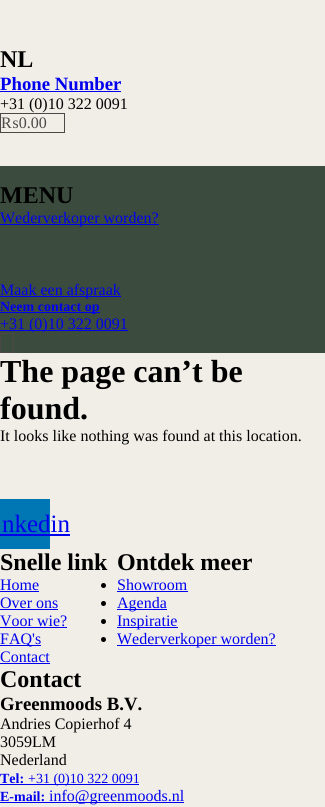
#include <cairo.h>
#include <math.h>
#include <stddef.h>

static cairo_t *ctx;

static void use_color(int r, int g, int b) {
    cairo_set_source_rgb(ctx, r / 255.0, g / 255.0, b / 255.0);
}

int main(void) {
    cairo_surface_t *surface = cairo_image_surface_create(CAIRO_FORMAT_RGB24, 325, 807);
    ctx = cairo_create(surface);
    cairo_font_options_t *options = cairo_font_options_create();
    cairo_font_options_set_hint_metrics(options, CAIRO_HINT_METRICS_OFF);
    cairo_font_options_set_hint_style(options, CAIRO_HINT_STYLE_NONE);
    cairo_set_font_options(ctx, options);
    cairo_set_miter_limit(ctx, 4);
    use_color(241, 238, 231);
    cairo_paint(ctx);
    cairo_select_font_face(ctx, "Liberation Serif", CAIRO_FONT_SLANT_NORMAL, CAIRO_FONT_WEIGHT_BOLD);
    cairo_set_font_size(ctx, 24);
    use_color(0, 0, 0);
    cairo_move_to(ctx, 0, 67);
    cairo_show_text(ctx, "NL");
    cairo_set_font_size(ctx, 18.75);
    use_color(0, 0, 238);
    cairo_move_to(ctx, 0, 90);
    cairo_show_text(ctx, "Phone Number");
    cairo_rectangle(ctx, 0, 91, 121, 1);
    cairo_fill(ctx);
    cairo_select_font_face(ctx, "Liberation Serif", CAIRO_FONT_SLANT_NORMAL, CAIRO_FONT_WEIGHT_NORMAL);
    cairo_set_font_size(ctx, 16);
    use_color(0, 0, 0);
    cairo_move_to(ctx, 0, 109);
    cairo_show_text(ctx, "+31 (0)10 322 0091");
    cairo_rectangle(ctx, 0.5, 113.5, 64, 19);
    use_color(77, 72, 72);
    cairo_set_line_width(ctx, 1);
    cairo_stroke(ctx);
    cairo_move_to(ctx, 1, 128);
    cairo_show_text(ctx, "₨0.00");
    use_color(59, 76, 62);
    cairo_rectangle(ctx, 0, 166, 325, 187);
    cairo_fill(ctx);
    cairo_select_font_face(ctx, "Liberation Serif", CAIRO_FONT_SLANT_NORMAL, CAIRO_FONT_WEIGHT_BOLD);
    cairo_set_font_size(ctx, 24);
    use_color(0, 0, 0);
    cairo_move_to(ctx, 0, 203);
    cairo_show_text(ctx, "MENU");
    use_color(0, 0, 238);
    cairo_rectangle(ctx, 0, 224, 159, 1);
    cairo_fill(ctx);
    cairo_select_font_face(ctx, "Liberation Serif", CAIRO_FONT_SLANT_NORMAL, CAIRO_FONT_WEIGHT_NORMAL);
    cairo_set_font_size(ctx, 16);
    cairo_move_to(ctx, 0, 223);
    cairo_show_text(ctx, "Wederverkoper worden?");
    cairo_rectangle(ctx, 0, 296, 121, 1);
    cairo_fill(ctx);
    cairo_move_to(ctx, 0, 295);
    cairo_show_text(ctx, "Maak een afspraak");
    cairo_rectangle(ctx, 0, 312, 100, 1);
    cairo_fill(ctx);
    cairo_select_font_face(ctx, "Liberation Serif", CAIRO_FONT_SLANT_NORMAL, CAIRO_FONT_WEIGHT_BOLD);
    cairo_set_font_size(ctx, 14);
    cairo_move_to(ctx, 0, 311);
    cairo_show_text(ctx, "Neem contact op");
    cairo_rectangle(ctx, 0, 330, 128, 1);
    cairo_fill(ctx);
    cairo_select_font_face(ctx, "Liberation Serif", CAIRO_FONT_SLANT_NORMAL, CAIRO_FONT_WEIGHT_NORMAL);
    cairo_set_font_size(ctx, 16);
    cairo_move_to(ctx, 0, 329);
    cairo_show_text(ctx, "+31 (0)10 322 0091");
    cairo_rectangle(ctx, 0.5, 333.5, 13, 19);
    use_color(77, 72, 72);
    cairo_stroke(ctx);
    cairo_select_font_face(ctx, "Liberation Serif", CAIRO_FONT_SLANT_NORMAL, CAIRO_FONT_WEIGHT_BOLD);
    cairo_set_font_size(ctx, 32);
    use_color(0, 0, 0);
    cairo_move_to(ctx, 0, 382);
    cairo_show_text(ctx, "The page can’t be");
    cairo_move_to(ctx, 0, 419);
    cairo_show_text(ctx, "found.");
    cairo_select_font_face(ctx, "Liberation Serif", CAIRO_FONT_SLANT_NORMAL, CAIRO_FONT_WEIGHT_NORMAL);
    cairo_set_font_size(ctx, 16);
    cairo_move_to(ctx, 0, 441);
    cairo_show_text(ctx, "It looks like nothing was found at this location.");
    use_color(0, 119, 181);
    cairo_rectangle(ctx, 0, 499, 50, 50);
    cairo_fill(ctx);
    cairo_set_font_size(ctx, 25);
    use_color(0, 0, 238);
    cairo_move_to(ctx, 2, 532);
    cairo_show_text(ctx, "nkedin");
    cairo_rectangle(ctx, 0, 534, 70, 2);
    cairo_fill(ctx);
    cairo_select_font_face(ctx, "Liberation Serif", CAIRO_FONT_SLANT_NORMAL, CAIRO_FONT_WEIGHT_BOLD);
    cairo_set_font_size(ctx, 24);
    use_color(0, 0, 0);
    cairo_move_to(ctx, 0, 570);
    cairo_show_text(ctx, "Snelle link");
    cairo_select_font_face(ctx, "Liberation Serif", CAIRO_FONT_SLANT_NORMAL, CAIRO_FONT_WEIGHT_NORMAL);
    cairo_set_font_size(ctx, 16);
    use_color(0, 0, 238);
    cairo_move_to(ctx, 0, 590);
    cairo_show_text(ctx, "Home");
    cairo_rectangle(ctx, 0, 591, 39, 1);
    cairo_fill(ctx);
    cairo_move_to(ctx, 0, 608);
    cairo_show_text(ctx, "Over ons");
    cairo_rectangle(ctx, 0, 609, 58, 1);
    cairo_fill(ctx);
    cairo_move_to(ctx, 0, 626);
    cairo_show_text(ctx, "Voor wie?");
    cairo_rectangle(ctx, 0, 627, 67, 1);
    cairo_fill(ctx);
    cairo_rectangle(ctx, 0, 645, 41, 1);
    cairo_fill(ctx);
    cairo_move_to(ctx, 0, 644);
    cairo_show_text(ctx, "FAQ's");
    cairo_move_to(ctx, 0, 662);
    cairo_show_text(ctx, "Contact");
    cairo_rectangle(ctx, 0, 663, 50, 1);
    cairo_fill(ctx);
    cairo_select_font_face(ctx, "Liberation Serif", CAIRO_FONT_SLANT_NORMAL, CAIRO_FONT_WEIGHT_BOLD);
    cairo_set_font_size(ctx, 24);
    use_color(0, 0, 0);
    cairo_move_to(ctx, 117, 570);
    cairo_show_text(ctx, "Ontdek meer");
    cairo_new_path(ctx);
    cairo_arc(ctx, 103.5, 585.5, 2.5, 0, 2 * M_PI);
    cairo_fill(ctx);
    cairo_select_font_face(ctx, "Liberation Serif", CAIRO_FONT_SLANT_NORMAL, CAIRO_FONT_WEIGHT_NORMAL);
    cairo_set_font_size(ctx, 16);
    use_color(0, 0, 238);
    cairo_move_to(ctx, 117, 590);
    cairo_show_text(ctx, "Showroom");
    cairo_rectangle(ctx, 117, 591, 71, 1);
    cairo_fill(ctx);
    use_color(0, 0, 0);
    cairo_arc(ctx, 103.5, 603.5, 2.5, 0, 2 * M_PI);
    cairo_fill(ctx);
    use_color(0, 0, 238);
    cairo_rectangle(ctx, 117, 609, 50, 1);
    cairo_fill(ctx);
    cairo_move_to(ctx, 117, 608);
    cairo_show_text(ctx, "Agenda");
    use_color(0, 0, 0);
    cairo_new_path(ctx);
    cairo_arc(ctx, 103.5, 621.5, 2.5, 0, 2 * M_PI);
    cairo_fill(ctx);
    use_color(0, 0, 238);
    cairo_rectangle(ctx, 117, 627, 61, 1);
    cairo_fill(ctx);
    cairo_move_to(ctx, 117, 626);
    cairo_show_text(ctx, "Inspiratie");
    use_color(0, 0, 0);
    cairo_new_path(ctx);
    cairo_arc(ctx, 103.5, 639.5, 2.5, 0, 2 * M_PI);
    cairo_fill(ctx);
    use_color(0, 0, 238);
    cairo_rectangle(ctx, 117, 645, 159, 1);
    cairo_fill(ctx);
    cairo_move_to(ctx, 117, 644);
    cairo_show_text(ctx, "Wederverkoper worden?");
    cairo_select_font_face(ctx, "Liberation Serif", CAIRO_FONT_SLANT_NORMAL, CAIRO_FONT_WEIGHT_BOLD);
    cairo_set_font_size(ctx, 24);
    use_color(0, 0, 0);
    cairo_move_to(ctx, 0, 687);
    cairo_show_text(ctx, "Contact");
    cairo_set_font_size(ctx, 18.75);
    cairo_move_to(ctx, 0, 710);
    cairo_show_text(ctx, "Greenmoods B.V.");
    cairo_select_font_face(ctx, "Liberation Serif", CAIRO_FONT_SLANT_NORMAL, CAIRO_FONT_WEIGHT_NORMAL);
    cairo_set_font_size(ctx, 16);
    cairo_move_to(ctx, 0, 729);
    cairo_show_text(ctx, "Andries Copierhof 4");
    cairo_move_to(ctx, 0, 747);
    cairo_show_text(ctx, "3059LM");
    cairo_move_to(ctx, 0, 765);
    cairo_show_text(ctx, "Nederland");
    cairo_select_font_face(ctx, "Liberation Serif", CAIRO_FONT_SLANT_NORMAL, CAIRO_FONT_WEIGHT_BOLD);
    cairo_set_font_size(ctx, 14);
    use_color(0, 0, 238);
    cairo_move_to(ctx, 0, 783);
    cairo_show_text(ctx, "Tel:");
    cairo_rectangle(ctx, 0, 784, 139, 1);
    cairo_fill(ctx);
    cairo_select_font_face(ctx, "Liberation Serif", CAIRO_FONT_SLANT_NORMAL, CAIRO_FONT_WEIGHT_NORMAL);
    cairo_move_to(ctx, 28, 783);
    cairo_show_text(ctx, "+31 (0)10 322 0091");
    cairo_select_font_face(ctx, "Liberation Serif", CAIRO_FONT_SLANT_NORMAL, CAIRO_FONT_WEIGHT_BOLD);
    cairo_move_to(ctx, 0, 801);
    cairo_show_text(ctx, "E-mail:");
    cairo_rectangle(ctx, 0, 802, 184, 1);
    cairo_fill(ctx);
    cairo_select_font_face(ctx, "Liberation Serif", CAIRO_FONT_SLANT_NORMAL, CAIRO_FONT_WEIGHT_NORMAL);
    cairo_set_font_size(ctx, 16);
    cairo_move_to(ctx, 49, 801);
    cairo_show_text(ctx, "info@greenmoods.nl");
    cairo_surface_write_to_png(surface, "result.png");
    cairo_font_options_destroy(options);
    cairo_destroy(ctx);
    cairo_surface_destroy(surface);
    return 0;
}
